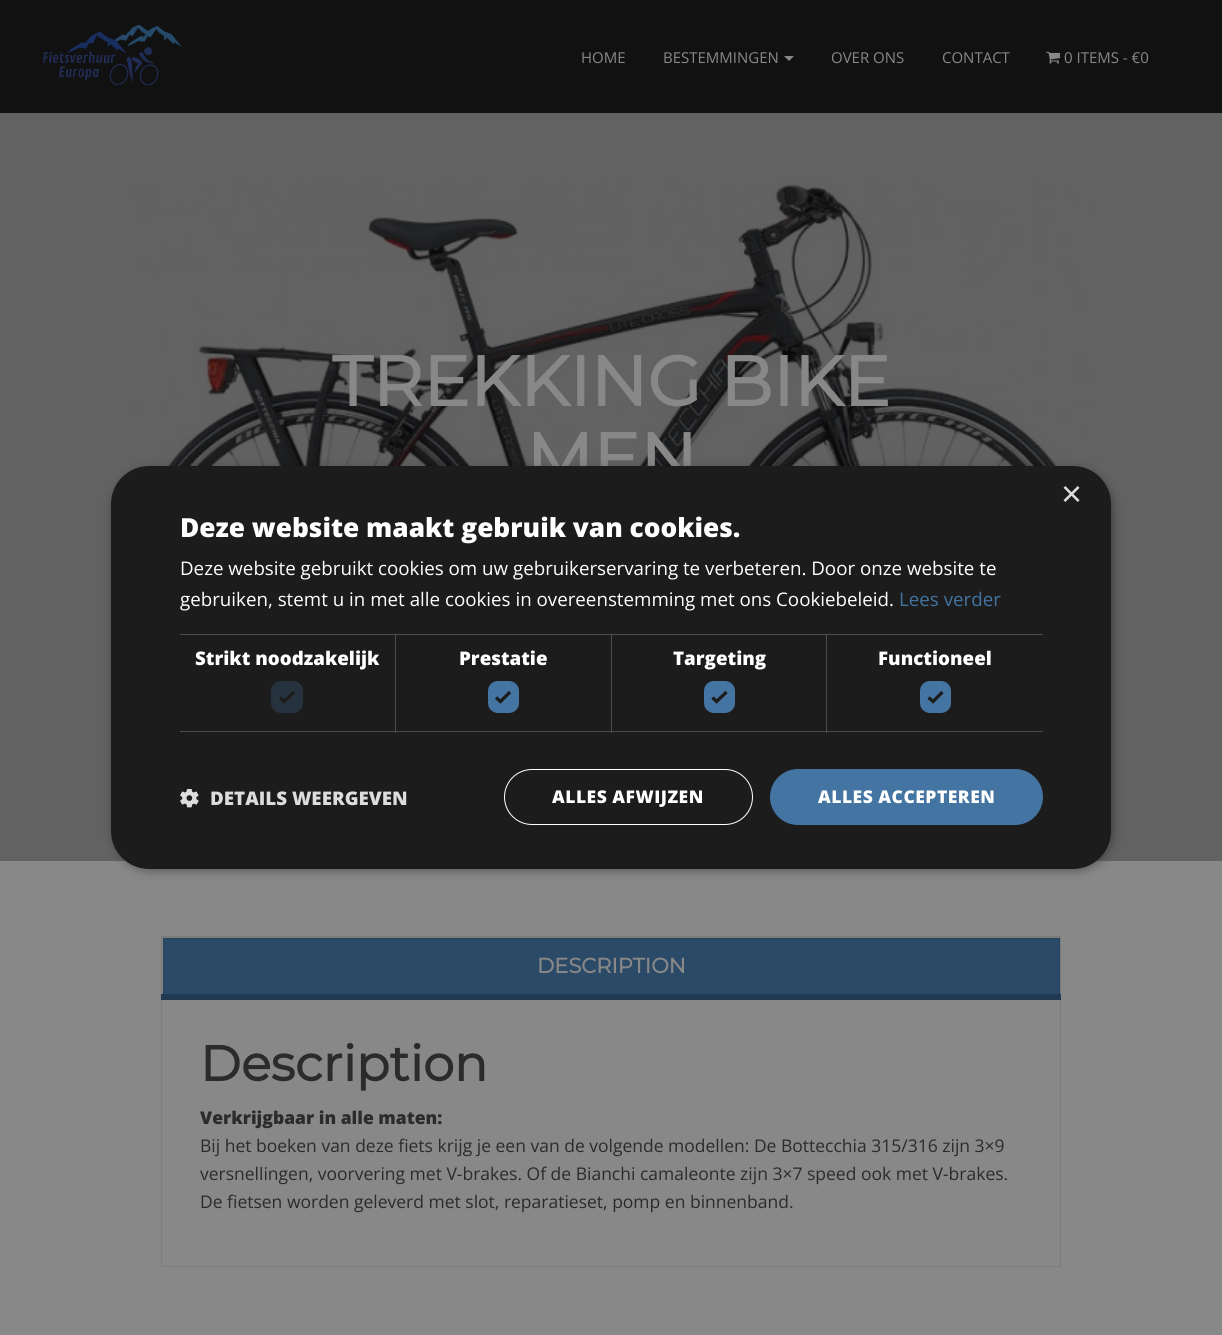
#include <cairo.h>
#include <math.h>
#include <stddef.h>

static cairo_t *ctx;

static void use_color(int r, int g, int b) {
    cairo_set_source_rgb(ctx, r / 255.0, g / 255.0, b / 255.0);
}

static void spaced_text(double x, double y, const char *s, double letter, double word) {
    cairo_move_to(ctx, x, y);
    while (*s) {
        char ch[5] = {0};
        int n = 0;
        do ch[n++] = *s++; while ((*s & 0xC0) == 0x80);
        cairo_show_text(ctx, ch);
        cairo_rel_move_to(ctx, letter + word * (*ch == ' '), 0);
    }
}

static void round_rect(double x, double y, double w, double h, double r) {
    cairo_new_sub_path(ctx);
    cairo_arc(ctx, x + w - r, y + h - r, r, 0, M_PI / 2);
    cairo_arc(ctx, x + r, y + h - r, r, M_PI / 2, M_PI);
    cairo_arc(ctx, x + r, y + r, r, M_PI, 1.5 * M_PI);
    cairo_arc(ctx, x + w - r, y + r, r, 1.5 * M_PI, 2 * M_PI);
    cairo_close_path(ctx);
}

static void shadow(double x, double y, double w, double h, double r, double blur, double alpha) {
    cairo_push_group_with_content(ctx, CAIRO_CONTENT_ALPHA);
    cairo_set_operator(ctx, CAIRO_OPERATOR_SOURCE);
    for (int i = 15; i >= -15 && fmin(w, h) + blur * i / 3 > 0; i -= 2) {
        double e = blur * i / 6;
        cairo_set_source_rgba(ctx, 0, 0, 0, alpha * erfc((i - 1) / 8.5) / 2);
        round_rect(x - e, y - e, w + 2 * e, h + 2 * e, fmax(0, fmin(r + e + blur * .6, fmin(w, h) / 2 + e)));
        cairo_fill(ctx);
    }
    cairo_pattern_t *soft = cairo_pop_group(ctx);
    cairo_mask(ctx, soft);
    cairo_pattern_destroy(soft);
}

static void picture(const char *path, double x, double y, double w, double h) {
    cairo_surface_t *image = cairo_image_surface_create_from_png(path);
    cairo_save(ctx);
    cairo_set_source_surface(ctx, image, x, y);
    cairo_rectangle(ctx, x, y, w, h);
    cairo_fill(ctx);
    cairo_restore(ctx);
    cairo_surface_destroy(image);
}

int main(void) {
    cairo_surface_t *surface = cairo_image_surface_create(CAIRO_FORMAT_RGB24, 1222, 1335);
    ctx = cairo_create(surface);
    cairo_font_options_t *options = cairo_font_options_create();
    cairo_font_options_set_hint_metrics(options, CAIRO_HINT_METRICS_OFF);
    cairo_font_options_set_hint_style(options, CAIRO_HINT_STYLE_NONE);
    cairo_set_font_options(ctx, options);
    cairo_set_miter_limit(ctx, 4);
    use_color(136, 136, 136);
    cairo_paint(ctx);
    use_color(98, 98, 98);
    cairo_rectangle(ctx, 0, 113, 1222, 748);
    cairo_fill(ctx);
    use_color(17, 17, 17);
    cairo_rectangle(ctx, 0, 0, 1222, 113);
    cairo_fill(ctx);
    picture("img1.png", 43, 25, 139, 61);
    cairo_select_font_face(ctx, "Open Sans", CAIRO_FONT_SLANT_NORMAL, CAIRO_FONT_WEIGHT_NORMAL);
    cairo_set_font_size(ctx, 15);
    use_color(136, 136, 136);
    cairo_move_to(ctx, 581, 63);
    cairo_show_text(ctx, "HOME");
    cairo_move_to(ctx, 663, 63);
    cairo_show_text(ctx, "BESTEMMINGEN");
    cairo_new_path(ctx);
    cairo_move_to(ctx, 784, 56);
    cairo_line_to(ctx, 794, 56);
    cairo_line_to(ctx, 789, 61);
    cairo_close_path(ctx);
    cairo_fill(ctx);
    cairo_move_to(ctx, 831, 63);
    cairo_show_text(ctx, "OVER ONS");
    cairo_move_to(ctx, 942, 63);
    cairo_show_text(ctx, "CONTACT");
    picture("img2.png", 1046, 51, 15, 13);
    cairo_move_to(ctx, 1064, 63);
    cairo_show_text(ctx, "0 ITEMS - €0");
    picture("img3.png", 129, 180, 969, 296);
    cairo_select_font_face(ctx, "Montserrat", CAIRO_FONT_SLANT_NORMAL, CAIRO_FONT_WEIGHT_BOLD);
    cairo_set_font_size(ctx, 70);
    cairo_move_to(ctx, 332, 406);
    cairo_show_text(ctx, "TREKKING BIKE");
    cairo_move_to(ctx, 526, 483);
    cairo_show_text(ctx, "MEN");
    use_color(34, 58, 81);
    cairo_rectangle(ctx, 161, 994, 900, 6);
    cairo_fill(ctx);
    use_color(124, 124, 124);
    cairo_new_path(ctx);
    cairo_move_to(ctx, 161, 936);
    cairo_line_to(ctx, 1061, 936);
    cairo_line_to(ctx, 1060, 938);
    cairo_line_to(ctx, 162, 938);
    cairo_close_path(ctx);
    cairo_fill(ctx);
    cairo_set_source_rgba(ctx, 0.035, 0.035, 0.035, 0.1);
    cairo_new_path(ctx);
    cairo_move_to(ctx, 1061, 936);
    cairo_line_to(ctx, 1061, 994);
    cairo_line_to(ctx, 1060, 994);
    cairo_line_to(ctx, 1060, 938);
    cairo_close_path(ctx);
    cairo_fill(ctx);
    cairo_new_path(ctx);
    cairo_move_to(ctx, 161, 994);
    cairo_line_to(ctx, 161, 936);
    cairo_line_to(ctx, 162, 938);
    cairo_line_to(ctx, 162, 994);
    cairo_close_path(ctx);
    cairo_fill(ctx);
    use_color(43, 74, 103);
    cairo_rectangle(ctx, 164, 939, 895, 55);
    cairo_fill(ctx);
    use_color(38, 66, 92);
    cairo_rectangle(ctx, 163, 938, 897, 1);
    cairo_fill(ctx);
    cairo_rectangle(ctx, 1059, 938, 1, 56);
    cairo_fill(ctx);
    cairo_rectangle(ctx, 163, 938, 1, 56);
    cairo_fill(ctx);
    cairo_set_font_size(ctx, 21);
    use_color(136, 136, 136);
    cairo_move_to(ctx, 537, 973);
    cairo_show_text(ctx, "DESCRIPTION");
    use_color(124, 124, 124);
    cairo_rectangle(ctx, 1060, 1000, 1, 268);
    cairo_fill(ctx);
    cairo_rectangle(ctx, 161, 1266, 900, 1);
    cairo_fill(ctx);
    cairo_rectangle(ctx, 161, 1000, 1, 268);
    cairo_fill(ctx);
    cairo_set_font_size(ctx, 49.5);
    use_color(43, 43, 43);
    cairo_move_to(ctx, 200, 1081);
    cairo_show_text(ctx, "Description");
    cairo_select_font_face(ctx, "Open Sans ExtraBold", CAIRO_FONT_SLANT_NORMAL, CAIRO_FONT_WEIGHT_NORMAL);
    cairo_set_font_size(ctx, 17.5);
    cairo_move_to(ctx, 200, 1124);
    cairo_show_text(ctx, "Verkrijgbaar in alle maten:");
    cairo_select_font_face(ctx, "Open Sans", CAIRO_FONT_SLANT_NORMAL, CAIRO_FONT_WEIGHT_NORMAL);
    cairo_move_to(ctx, 200, 1152);
    cairo_show_text(ctx, "Bij het boeken van deze fiets krijg je een van de volgende modellen: De Bottecchia 315/316 zijn 3×9");
    cairo_move_to(ctx, 200, 1180);
    cairo_show_text(ctx, "versnellingen, voorvering met V-brakes. Of de Bianchi camaleonte zijn 3×7 speed ook met V-brakes.");
    cairo_move_to(ctx, 200, 1208);
    cairo_show_text(ctx, "De fietsen worden geleverd met slot, reparatieset, pomp en binnenband.");
    use_color(0, 0, 0);
    shadow(113, 469, 1000, 402, 38, 5, 0.35);
    use_color(28, 28, 28);
    round_rect(111, 466, 1000, 403, 38);
    cairo_fill(ctx);
    cairo_select_font_face(ctx, "Liberation Sans", CAIRO_FONT_SLANT_NORMAL, CAIRO_FONT_WEIGHT_NORMAL);
    cairo_set_font_size(ctx, 36);
    use_color(221, 221, 221);
    cairo_move_to(ctx, 1061, 506);
    cairo_show_text(ctx, "×");
    cairo_select_font_face(ctx, "Open Sans ExtraBold", CAIRO_FONT_SLANT_NORMAL, CAIRO_FONT_WEIGHT_NORMAL);
    cairo_set_font_size(ctx, 26.25);
    use_color(255, 255, 255);
    cairo_move_to(ctx, 180, 537);
    cairo_show_text(ctx, "Deze website maakt gebruik van cookies.");
    cairo_select_font_face(ctx, "Open Sans", CAIRO_FONT_SLANT_NORMAL, CAIRO_FONT_WEIGHT_NORMAL);
    cairo_set_font_size(ctx, 18.75);
    cairo_move_to(ctx, 180, 575);
    cairo_show_text(ctx, "Deze website gebruikt cookies om uw gebruikerservaring te verbeteren. Door onze website te");
    cairo_move_to(ctx, 180, 606);
    cairo_show_text(ctx, "gebruiken, stemt u in met alle cookies in overeenstemming met ons Cookiebeleid.");
    use_color(67, 116, 162);
    cairo_move_to(ctx, 899, 606);
    cairo_show_text(ctx, "Lees verder");
    use_color(77, 77, 77);
    cairo_rectangle(ctx, 180, 634, 863, 1);
    cairo_fill(ctx);
    cairo_rectangle(ctx, 395, 634, 1, 99);
    cairo_fill(ctx);
    cairo_rectangle(ctx, 180, 731, 216, 1);
    cairo_fill(ctx);
    cairo_select_font_face(ctx, "Open Sans ExtraBold", CAIRO_FONT_SLANT_NORMAL, CAIRO_FONT_WEIGHT_NORMAL);
    use_color(255, 255, 255);
    cairo_move_to(ctx, 195, 665);
    cairo_show_text(ctx, "Strikt noodzakelijk");
    use_color(38, 51, 63);
    round_rect(271, 681, 32, 32, 10);
    cairo_fill(ctx);
    cairo_new_path(ctx);
    cairo_move_to(ctx, 280, 697.5);
    cairo_line_to(ctx, 284, 701.5);
    cairo_line_to(ctx, 294, 692);
    use_color(28, 28, 28);
    cairo_set_line_width(ctx, 3.3);
    cairo_stroke(ctx);
    use_color(77, 77, 77);
    cairo_rectangle(ctx, 611, 634, 1, 99);
    cairo_fill(ctx);
    cairo_rectangle(ctx, 396, 731, 217, 1);
    cairo_fill(ctx);
    use_color(255, 255, 255);
    cairo_move_to(ctx, 459, 665);
    cairo_show_text(ctx, "Prestatie");
    use_color(67, 116, 162);
    round_rect(489.5, 682.5, 28, 29, 8.5);
    cairo_fill_preserve(ctx);
    cairo_set_line_width(ctx, 3);
    cairo_stroke(ctx);
    cairo_new_path(ctx);
    cairo_move_to(ctx, 496, 697.5);
    cairo_line_to(ctx, 500.5, 701.5);
    cairo_line_to(ctx, 510, 692);
    use_color(28, 28, 28);
    cairo_set_line_width(ctx, 3.3);
    cairo_stroke(ctx);
    use_color(77, 77, 77);
    cairo_rectangle(ctx, 826, 634, 1, 99);
    cairo_fill(ctx);
    cairo_rectangle(ctx, 613, 731, 430, 1);
    cairo_fill(ctx);
    use_color(255, 255, 255);
    cairo_move_to(ctx, 673, 665);
    cairo_show_text(ctx, "Targeting");
    use_color(67, 116, 162);
    round_rect(705.5, 682.5, 28, 29, 8.5);
    cairo_fill_preserve(ctx);
    cairo_set_line_width(ctx, 3);
    cairo_stroke(ctx);
    cairo_new_path(ctx);
    cairo_move_to(ctx, 712.5, 697.5);
    cairo_line_to(ctx, 716.5, 701.5);
    cairo_line_to(ctx, 726.5, 692);
    use_color(28, 28, 28);
    cairo_set_line_width(ctx, 3.3);
    cairo_stroke(ctx);
    use_color(255, 255, 255);
    cairo_move_to(ctx, 878, 665);
    cairo_show_text(ctx, "Functioneel");
    use_color(67, 116, 162);
    round_rect(921.5, 682.5, 28, 29, 8.5);
    cairo_fill_preserve(ctx);
    cairo_set_line_width(ctx, 3);
    cairo_stroke(ctx);
    cairo_new_path(ctx);
    cairo_move_to(ctx, 928.5, 697.5);
    cairo_line_to(ctx, 933, 701.5);
    cairo_line_to(ctx, 942.5, 692);
    use_color(28, 28, 28);
    cairo_set_line_width(ctx, 3.3);
    cairo_stroke(ctx);
    picture("img4.png", 180, 789, 19, 19);
    use_color(221, 221, 221);
    cairo_move_to(ctx, 210, 805);
    cairo_show_text(ctx, "DETAILS WEERGEVEN");
    round_rect(504.5, 769.5, 248, 55, 27.5);
    use_color(255, 255, 255);
    cairo_set_line_width(ctx, 1);
    cairo_stroke(ctx);
    cairo_set_font_size(ctx, 17.5);
    spaced_text(552, 803, "ALLES AFWIJZEN", 0.5, 0);
    use_color(67, 116, 162);
    round_rect(770, 769, 273, 56, 28);
    cairo_fill(ctx);
    use_color(255, 255, 255);
    spaced_text(818, 803, "ALLES ACCEPTEREN", 0.5, 0);
    cairo_surface_write_to_png(surface, "result.png");
    cairo_font_options_destroy(options);
    cairo_destroy(ctx);
    cairo_surface_destroy(surface);
    return 0;
}
